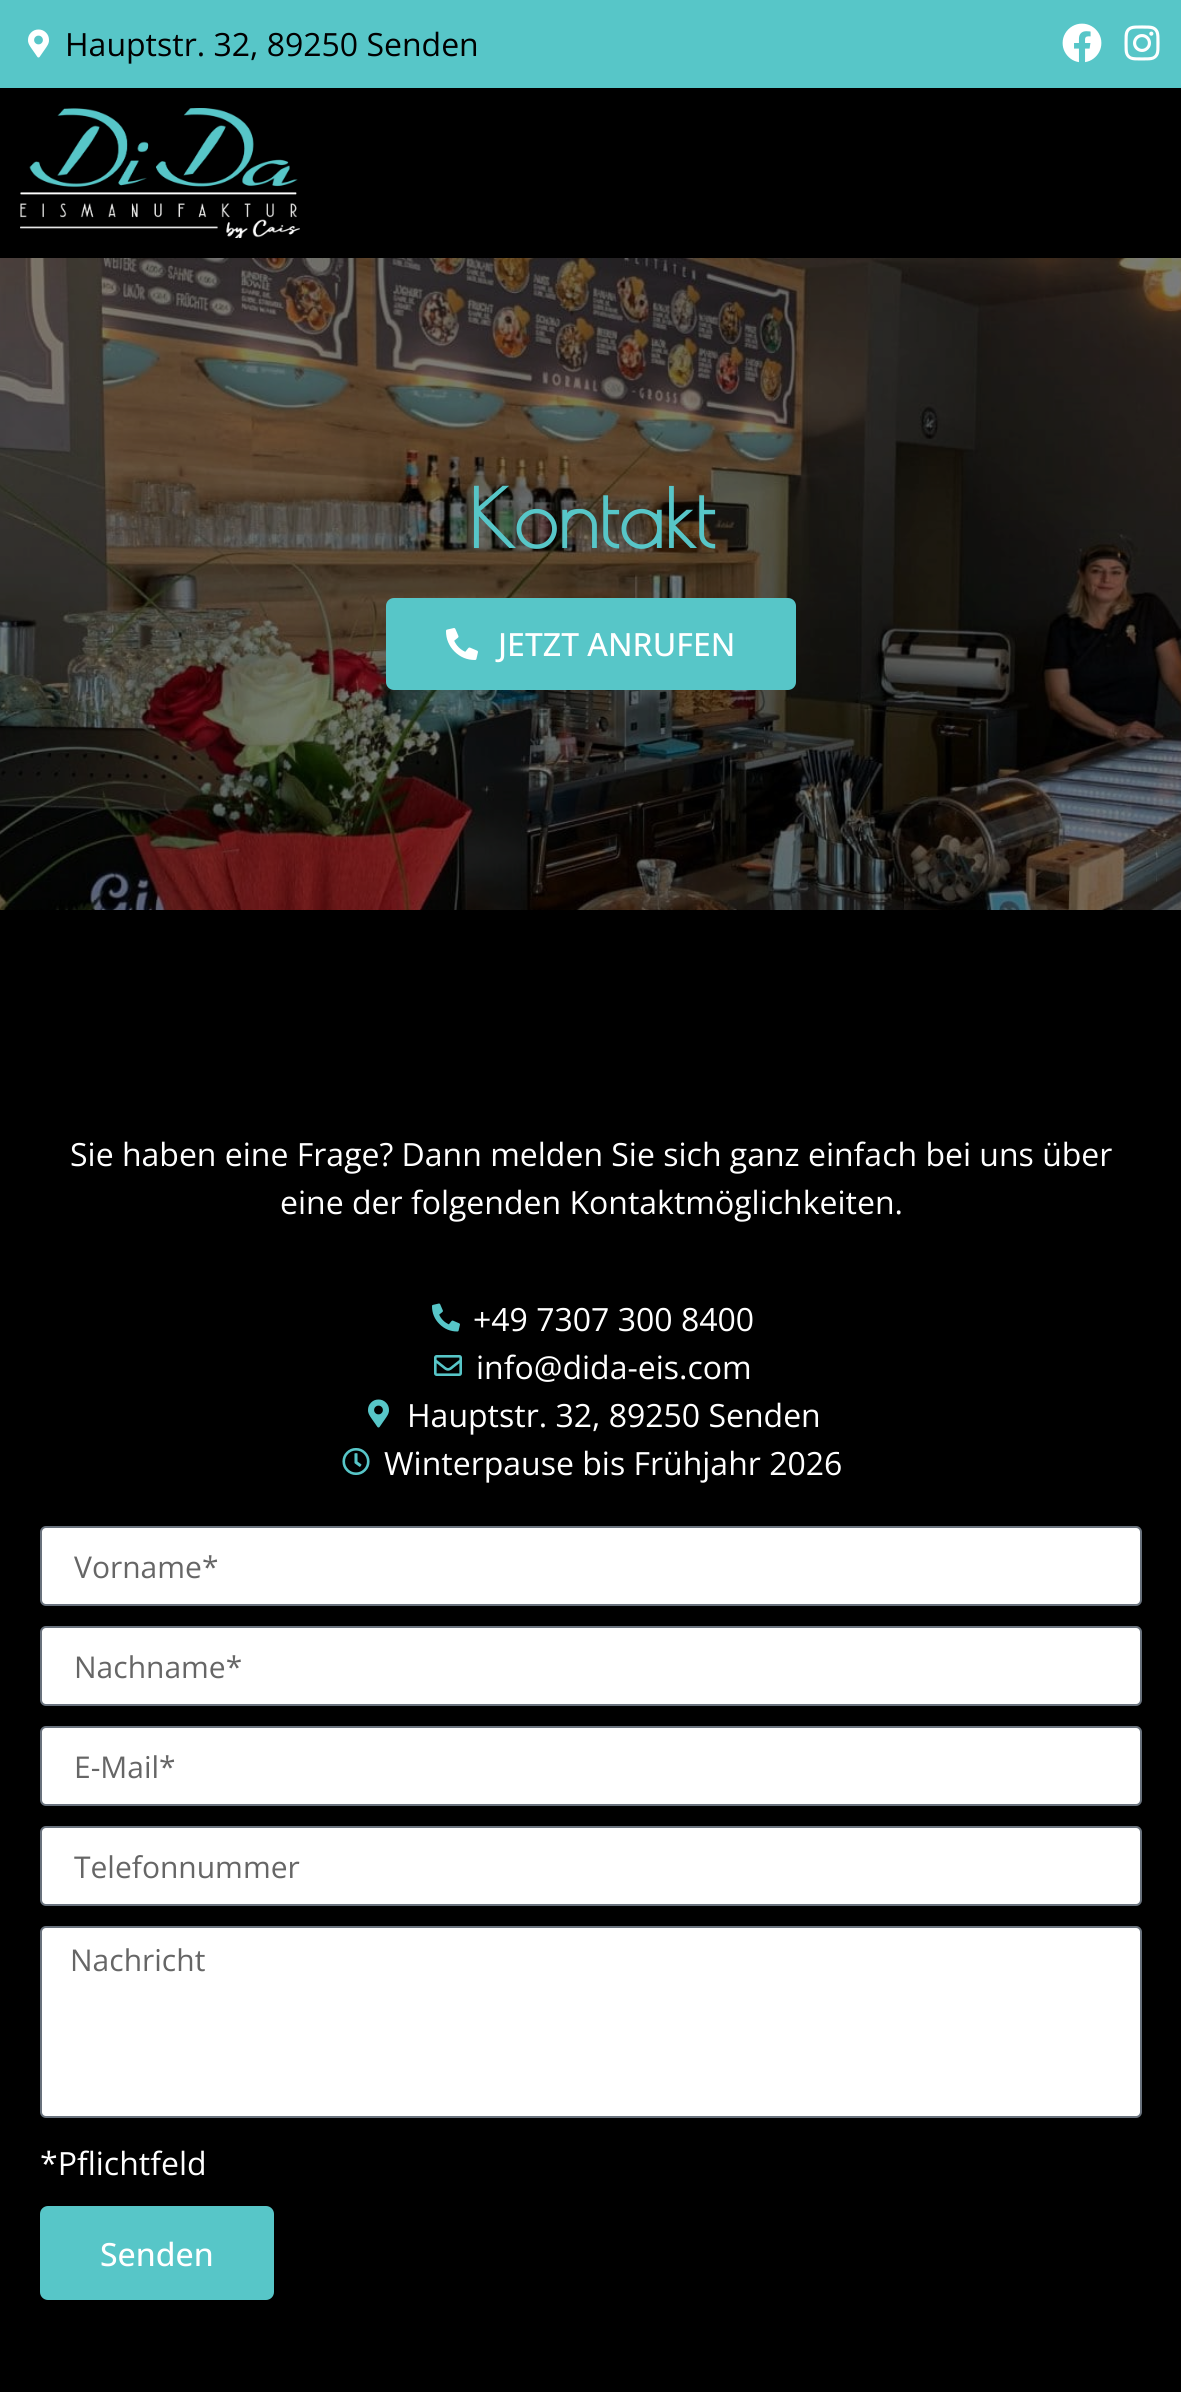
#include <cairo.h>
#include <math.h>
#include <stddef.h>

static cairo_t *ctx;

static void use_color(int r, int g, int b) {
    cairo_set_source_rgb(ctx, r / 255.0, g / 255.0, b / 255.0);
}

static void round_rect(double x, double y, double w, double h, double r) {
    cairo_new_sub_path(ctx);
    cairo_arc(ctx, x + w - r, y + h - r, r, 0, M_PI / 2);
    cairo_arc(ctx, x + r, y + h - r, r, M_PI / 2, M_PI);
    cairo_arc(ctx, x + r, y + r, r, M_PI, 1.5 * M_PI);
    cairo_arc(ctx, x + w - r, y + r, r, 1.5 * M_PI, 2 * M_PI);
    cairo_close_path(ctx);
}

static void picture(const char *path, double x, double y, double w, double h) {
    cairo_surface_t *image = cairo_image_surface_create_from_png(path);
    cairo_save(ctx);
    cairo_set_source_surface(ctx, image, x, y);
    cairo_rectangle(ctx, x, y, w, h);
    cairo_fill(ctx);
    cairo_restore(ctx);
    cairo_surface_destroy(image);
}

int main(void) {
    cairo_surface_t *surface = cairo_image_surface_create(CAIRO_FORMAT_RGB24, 1181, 2392);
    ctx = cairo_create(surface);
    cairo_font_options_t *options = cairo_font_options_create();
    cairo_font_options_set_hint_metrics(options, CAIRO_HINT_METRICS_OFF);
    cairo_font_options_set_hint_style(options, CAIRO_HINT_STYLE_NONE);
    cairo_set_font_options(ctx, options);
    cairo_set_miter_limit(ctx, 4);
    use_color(87, 198, 200);
    cairo_paint(ctx);
    picture("img1.png", 28, 29, 21, 29);
    cairo_select_font_face(ctx, "Open Sans", CAIRO_FONT_SLANT_NORMAL, CAIRO_FONT_WEIGHT_NORMAL);
    cairo_set_font_size(ctx, 32);
    use_color(0, 0, 0);
    cairo_move_to(ctx, 65, 56);
    cairo_show_text(ctx, "Hauptstr. 32, 89250 Senden");
    picture("img2.png", 1062, 23, 40, 40);
    picture("img3.png", 1124, 25, 36, 36);
    cairo_rectangle(ctx, 0, 88, 1181, 170);
    cairo_fill(ctx);
    picture("img4.png", 20, 108, 280, 130);
    picture("img5.png", 0, 258, 1181, 652);
    cairo_select_font_face(ctx, "Poiret One", CAIRO_FONT_SLANT_NORMAL, CAIRO_FONT_WEIGHT_BOLD);
    cairo_set_font_size(ctx, 80);
    use_color(87, 198, 200);
    cairo_move_to(ctx, 468, 548);
    cairo_show_text(ctx, "Kontakt");
    round_rect(386, 598, 410, 92, 8);
    cairo_fill(ctx);
    picture("img6.png", 446, 628, 32, 32);
    cairo_select_font_face(ctx, "Open Sans Medium", CAIRO_FONT_SLANT_NORMAL, CAIRO_FONT_WEIGHT_NORMAL);
    cairo_set_font_size(ctx, 32);
    use_color(255, 255, 255);
    cairo_move_to(ctx, 498, 656);
    cairo_show_text(ctx, "JETZT ANRUFEN");
    use_color(0, 0, 0);
    cairo_rectangle(ctx, 0, 910, 1181, 1482);
    cairo_fill(ctx);
    cairo_select_font_face(ctx, "Open Sans", CAIRO_FONT_SLANT_NORMAL, CAIRO_FONT_WEIGHT_NORMAL);
    use_color(255, 255, 255);
    cairo_move_to(ctx, 70, 1166);
    cairo_show_text(ctx, "Sie haben eine Frage? Dann melden Sie sich ganz einfach bei uns über");
    cairo_move_to(ctx, 280, 1214);
    cairo_show_text(ctx, "eine der folgenden Kontaktmöglichkeiten.");
    picture("img7.png", 432, 1303, 28, 29);
    cairo_move_to(ctx, 473, 1331);
    cairo_show_text(ctx, "+49 7307 300 8400");
    picture("img8.png", 434, 1355, 28, 21);
    cairo_move_to(ctx, 476, 1379);
    cairo_show_text(ctx, "info@dida-eis.com");
    picture("img9.png", 368, 1399, 21, 29);
    cairo_move_to(ctx, 407, 1427);
    cairo_show_text(ctx, "Hauptstr. 32, 89250 Senden");
    picture("img10.png", 342, 1448, 28, 27);
    cairo_move_to(ctx, 384, 1475);
    cairo_show_text(ctx, "Winterpause bis Frühjahr 2026");
    round_rect(41, 1527, 1100, 78, 5);
    cairo_fill_preserve(ctx);
    use_color(105, 114, 125);
    cairo_stroke(ctx);
    cairo_set_font_size(ctx, 30);
    use_color(102, 102, 102);
    cairo_move_to(ctx, 74, 1578);
    cairo_show_text(ctx, "Vorname*");
    use_color(255, 255, 255);
    round_rect(41, 1627, 1100, 78, 5);
    cairo_fill_preserve(ctx);
    use_color(105, 114, 125);
    cairo_stroke(ctx);
    use_color(102, 102, 102);
    cairo_move_to(ctx, 74, 1678);
    cairo_show_text(ctx, "Nachname*");
    use_color(255, 255, 255);
    round_rect(41, 1727, 1100, 78, 5);
    cairo_fill_preserve(ctx);
    use_color(105, 114, 125);
    cairo_stroke(ctx);
    use_color(102, 102, 102);
    cairo_move_to(ctx, 74, 1778);
    cairo_show_text(ctx, "E-Mail*");
    use_color(255, 255, 255);
    round_rect(41, 1827, 1100, 78, 5);
    cairo_fill_preserve(ctx);
    use_color(105, 114, 125);
    cairo_stroke(ctx);
    use_color(102, 102, 102);
    cairo_move_to(ctx, 74, 1878);
    cairo_show_text(ctx, "Telefonnummer");
    use_color(255, 255, 255);
    round_rect(41, 1927, 1100, 190, 5);
    cairo_fill_preserve(ctx);
    use_color(105, 114, 125);
    cairo_stroke(ctx);
    use_color(102, 102, 102);
    cairo_move_to(ctx, 70, 1971);
    cairo_show_text(ctx, "Nachricht");
    cairo_set_font_size(ctx, 32);
    use_color(255, 255, 255);
    cairo_move_to(ctx, 40, 2175);
    cairo_show_text(ctx, "*Pflichtfeld");
    use_color(87, 198, 200);
    round_rect(40, 2206, 234, 94, 8);
    cairo_fill(ctx);
    cairo_select_font_face(ctx, "Open Sans Medium", CAIRO_FONT_SLANT_NORMAL, CAIRO_FONT_WEIGHT_NORMAL);
    use_color(255, 255, 255);
    cairo_move_to(ctx, 100, 2266);
    cairo_show_text(ctx, "Senden");
    cairo_surface_write_to_png(surface, "result.png");
    cairo_font_options_destroy(options);
    cairo_destroy(ctx);
    cairo_surface_destroy(surface);
    return 0;
}
